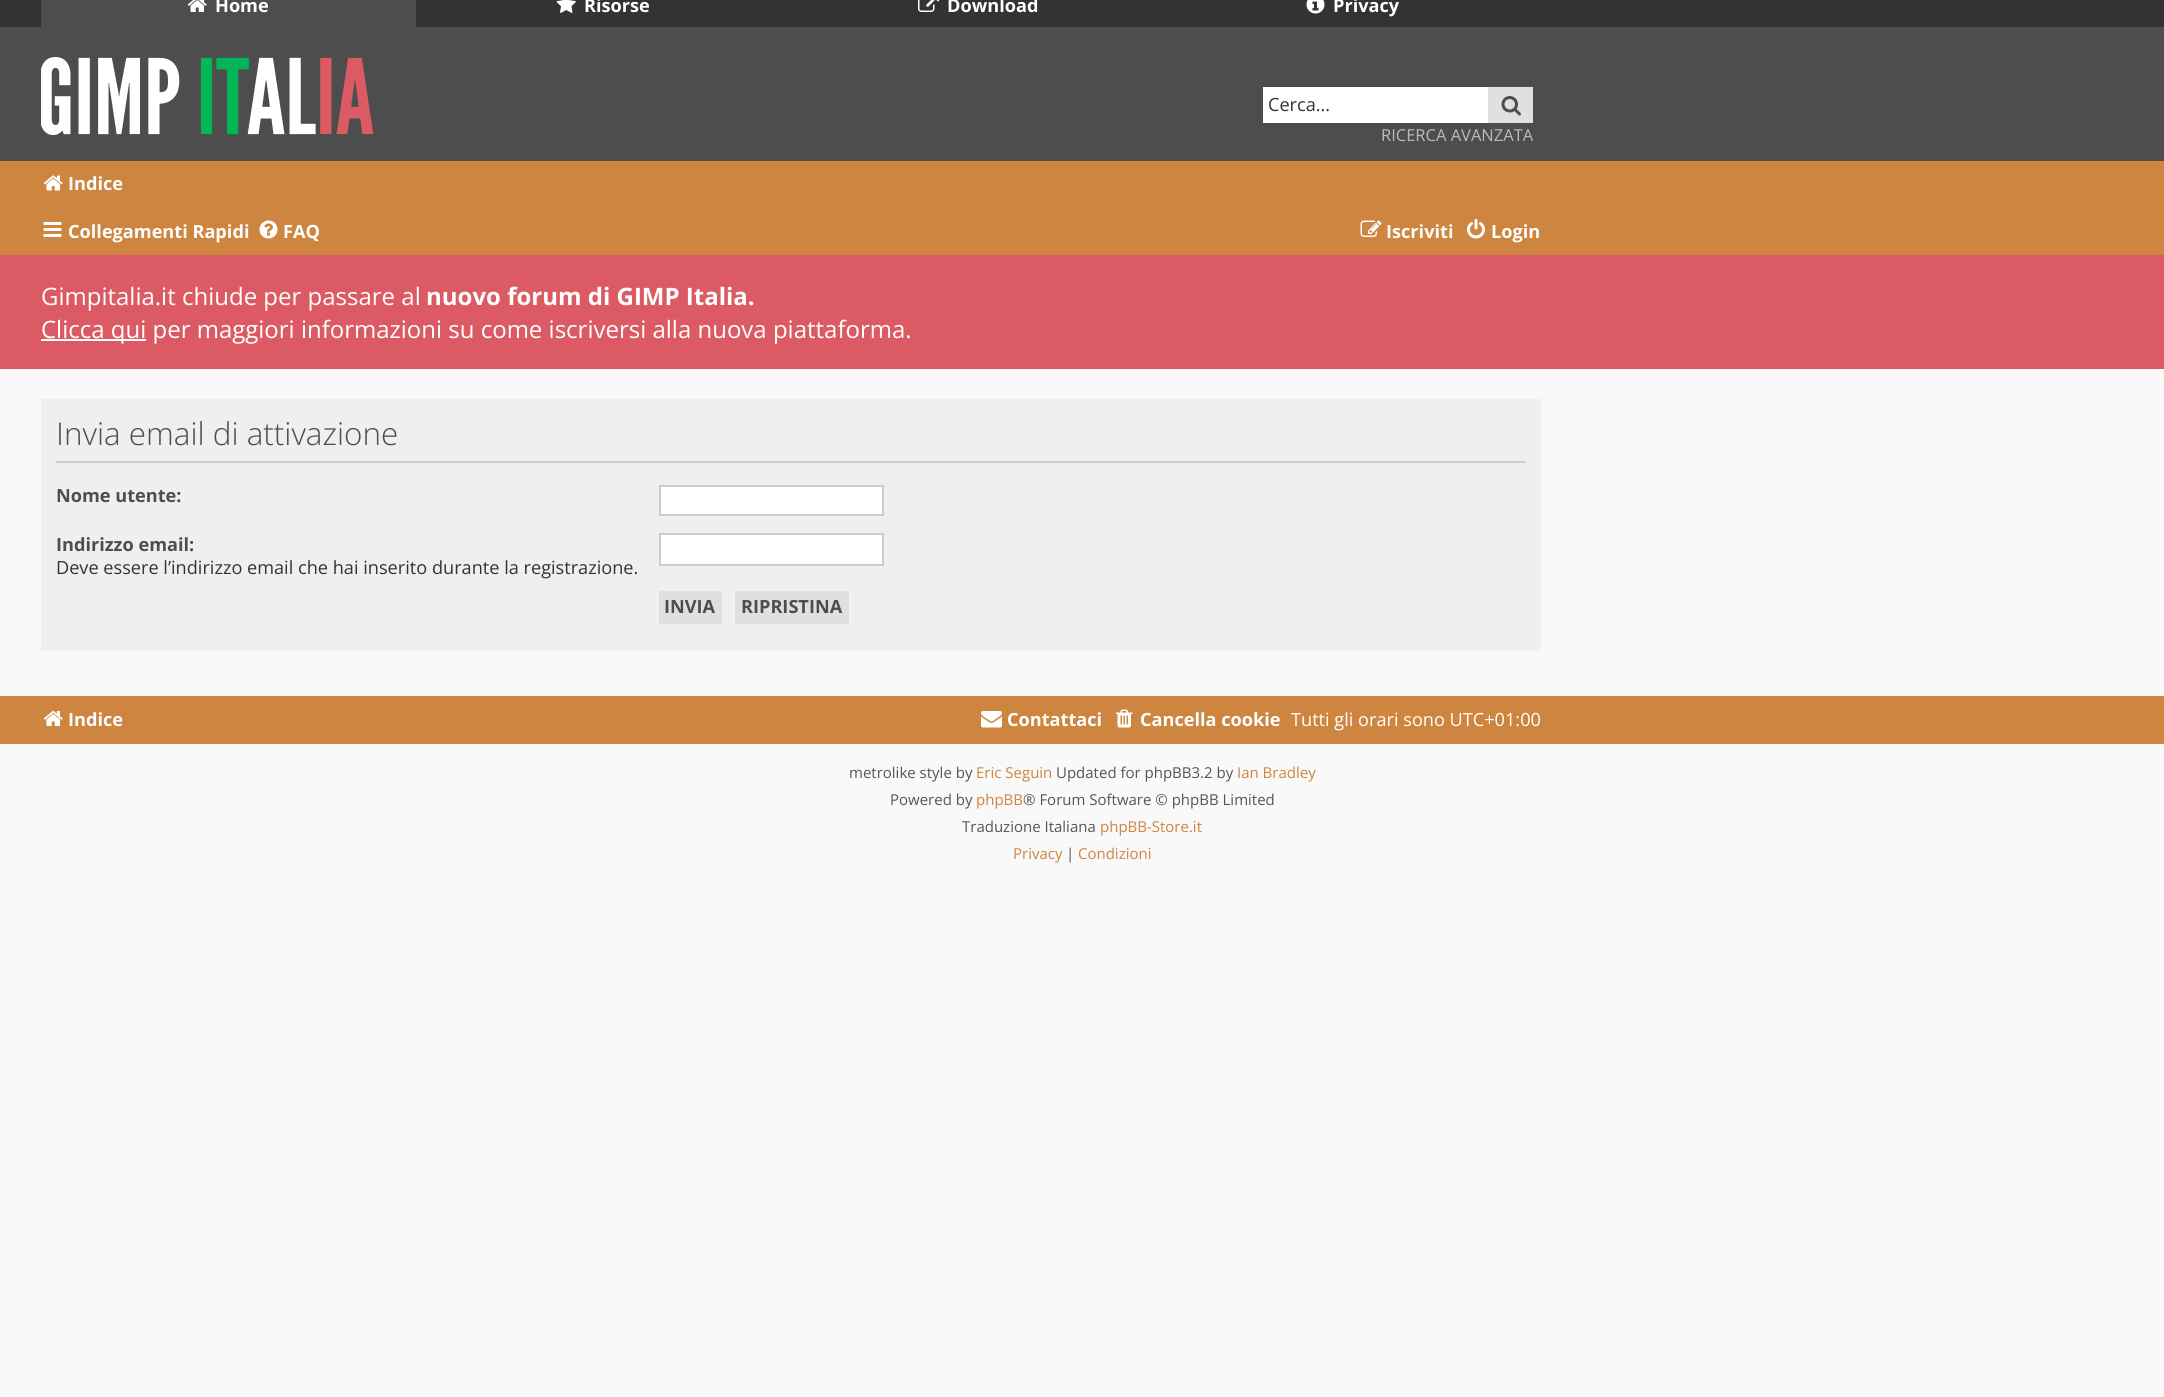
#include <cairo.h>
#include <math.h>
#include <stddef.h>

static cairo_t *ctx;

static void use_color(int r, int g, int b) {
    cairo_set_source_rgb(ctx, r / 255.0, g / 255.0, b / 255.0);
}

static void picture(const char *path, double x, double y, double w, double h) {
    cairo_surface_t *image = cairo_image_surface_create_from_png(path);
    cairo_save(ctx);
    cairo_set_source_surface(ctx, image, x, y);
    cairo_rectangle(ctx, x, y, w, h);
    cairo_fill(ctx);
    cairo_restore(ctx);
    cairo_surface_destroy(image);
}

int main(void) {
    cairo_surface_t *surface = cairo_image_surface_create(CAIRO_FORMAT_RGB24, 2164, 1397);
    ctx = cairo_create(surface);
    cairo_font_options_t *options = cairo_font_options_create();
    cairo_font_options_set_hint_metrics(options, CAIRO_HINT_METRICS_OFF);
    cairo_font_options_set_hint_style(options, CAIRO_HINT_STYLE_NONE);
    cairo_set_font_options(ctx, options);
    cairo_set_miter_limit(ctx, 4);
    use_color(249, 249, 249);
    cairo_paint(ctx);
    use_color(51, 51, 51);
    cairo_rectangle(ctx, 0, 0, 2164, 27);
    cairo_fill(ctx);
    use_color(77, 77, 77);
    cairo_rectangle(ctx, 41, 0, 375, 27);
    cairo_fill(ctx);
    picture("img1.png", 187, 0, 20, 12);
    cairo_select_font_face(ctx, "Open Sans", CAIRO_FONT_SLANT_NORMAL, CAIRO_FONT_WEIGHT_BOLD);
    cairo_set_font_size(ctx, 18.15);
    use_color(255, 255, 255);
    cairo_move_to(ctx, 215, 12);
    cairo_show_text(ctx, "Home");
    picture("img2.png", 556, 0, 20, 13);
    cairo_move_to(ctx, 584, 12);
    cairo_show_text(ctx, "Risorse");
    picture("img3.png", 918, 0, 21, 12);
    cairo_move_to(ctx, 947, 12);
    cairo_show_text(ctx, "Download");
    picture("img4.png", 1306, 0, 19, 14);
    cairo_move_to(ctx, 1333, 12);
    cairo_show_text(ctx, "Privacy");
    use_color(77, 77, 77);
    cairo_rectangle(ctx, 0, 27, 2164, 134);
    cairo_fill(ctx);
    picture("img5.png", 41, 57, 333, 78);
    use_color(255, 255, 255);
    cairo_rectangle(ctx, 1263, 87, 225, 36);
    cairo_fill(ctx);
    cairo_select_font_face(ctx, "Open Sans", CAIRO_FONT_SLANT_NORMAL, CAIRO_FONT_WEIGHT_NORMAL);
    use_color(51, 51, 51);
    cairo_move_to(ctx, 1268, 111);
    cairo_show_text(ctx, "Cerca...");
    use_color(224, 224, 224);
    cairo_rectangle(ctx, 1488, 87, 45, 36);
    cairo_fill(ctx);
    picture("img6.png", 1501, 96, 20, 20);
    cairo_set_font_size(ctx, 16.5);
    use_color(187, 187, 187);
    cairo_move_to(ctx, 1381, 141);
    cairo_show_text(ctx, "RICERCA AVANZATA");
    use_color(205, 133, 63);
    cairo_rectangle(ctx, 0, 161, 2164, 94);
    cairo_fill(ctx);
    picture("img7.png", 43, 175, 20, 16);
    cairo_select_font_face(ctx, "Open Sans", CAIRO_FONT_SLANT_NORMAL, CAIRO_FONT_WEIGHT_BOLD);
    cairo_set_font_size(ctx, 18.15);
    use_color(255, 255, 255);
    cairo_move_to(ctx, 68, 190);
    cairo_show_text(ctx, "Indice");
    picture("img8.png", 43, 222, 19, 15);
    cairo_move_to(ctx, 68, 238);
    cairo_show_text(ctx, "Collegamenti Rapidi");
    picture("img9.png", 259, 220, 19, 19);
    cairo_move_to(ctx, 283, 238);
    cairo_show_text(ctx, "FAQ");
    picture("img10.png", 1360, 220, 22, 17);
    cairo_move_to(ctx, 1386, 238);
    cairo_show_text(ctx, "Iscriviti");
    picture("img11.png", 1467, 219, 18, 20);
    cairo_move_to(ctx, 1491, 238);
    cairo_show_text(ctx, "Login");
    use_color(220, 90, 99);
    cairo_rectangle(ctx, 0, 255, 2164, 114);
    cairo_fill(ctx);
    cairo_select_font_face(ctx, "Open Sans", CAIRO_FONT_SLANT_NORMAL, CAIRO_FONT_WEIGHT_NORMAL);
    cairo_set_font_size(ctx, 24);
    use_color(255, 255, 255);
    cairo_move_to(ctx, 41, 305);
    cairo_show_text(ctx, "Gimpitalia.it chiude per passare al");
    cairo_select_font_face(ctx, "Open Sans", CAIRO_FONT_SLANT_NORMAL, CAIRO_FONT_WEIGHT_BOLD);
    cairo_move_to(ctx, 426, 305);
    cairo_show_text(ctx, "nuovo forum di GIMP Italia.");
    cairo_rectangle(ctx, 41, 339, 105, 2);
    cairo_fill(ctx);
    cairo_select_font_face(ctx, "Open Sans", CAIRO_FONT_SLANT_NORMAL, CAIRO_FONT_WEIGHT_NORMAL);
    cairo_move_to(ctx, 41, 338);
    cairo_show_text(ctx, "Clicca qui per maggiori informazioni su come iscriversi alla nuova piattaforma.");
    use_color(239, 239, 239);
    cairo_rectangle(ctx, 41, 399, 1500, 252);
    cairo_fill(ctx);
    use_color(204, 204, 204);
    cairo_rectangle(ctx, 56, 461, 1470, 2);
    cairo_fill(ctx);
    cairo_select_font_face(ctx, "Open Sans Light", CAIRO_FONT_SLANT_NORMAL, CAIRO_FONT_WEIGHT_NORMAL);
    cairo_set_font_size(ctx, 31.4);
    use_color(77, 77, 77);
    cairo_move_to(ctx, 56, 445);
    cairo_show_text(ctx, "Invia email di attivazione");
    cairo_select_font_face(ctx, "Open Sans", CAIRO_FONT_SLANT_NORMAL, CAIRO_FONT_WEIGHT_BOLD);
    cairo_set_font_size(ctx, 18.15);
    cairo_move_to(ctx, 56, 502);
    cairo_show_text(ctx, "Nome utente:");
    use_color(255, 255, 255);
    cairo_rectangle(ctx, 660, 486, 223, 29);
    cairo_fill_preserve(ctx);
    use_color(204, 204, 204);
    cairo_stroke(ctx);
    use_color(77, 77, 77);
    cairo_move_to(ctx, 56, 551);
    cairo_show_text(ctx, "Indirizzo email:");
    cairo_select_font_face(ctx, "Open Sans", CAIRO_FONT_SLANT_NORMAL, CAIRO_FONT_WEIGHT_NORMAL);
    use_color(51, 51, 51);
    cairo_move_to(ctx, 56, 574);
    cairo_show_text(ctx, "Deve essere l’indirizzo email che hai inserito durante la registrazione.");
    use_color(255, 255, 255);
    cairo_rectangle(ctx, 660, 534, 223, 31);
    cairo_fill_preserve(ctx);
    use_color(204, 204, 204);
    cairo_stroke(ctx);
    use_color(224, 224, 224);
    cairo_rectangle(ctx, 659, 591, 63, 33);
    cairo_fill(ctx);
    cairo_select_font_face(ctx, "Open Sans", CAIRO_FONT_SLANT_NORMAL, CAIRO_FONT_WEIGHT_BOLD);
    use_color(77, 77, 77);
    cairo_move_to(ctx, 664, 613);
    cairo_show_text(ctx, "INVIA");
    use_color(224, 224, 224);
    cairo_rectangle(ctx, 735, 591, 114, 33);
    cairo_fill(ctx);
    use_color(77, 77, 77);
    cairo_move_to(ctx, 741, 613);
    cairo_show_text(ctx, "RIPRISTINA");
    use_color(205, 133, 63);
    cairo_rectangle(ctx, 0, 696, 2164, 48);
    cairo_fill(ctx);
    picture("img12.png", 43, 711, 20, 15);
    use_color(255, 255, 255);
    cairo_move_to(ctx, 68, 726);
    cairo_show_text(ctx, "Indice");
    picture("img13.png", 981, 711, 21, 17);
    cairo_move_to(ctx, 1007, 726);
    cairo_show_text(ctx, "Contattaci");
    picture("img14.png", 1116, 709, 17, 19);
    cairo_move_to(ctx, 1140, 726);
    cairo_show_text(ctx, "Cancella cookie");
    cairo_select_font_face(ctx, "Open Sans", CAIRO_FONT_SLANT_NORMAL, CAIRO_FONT_WEIGHT_NORMAL);
    cairo_move_to(ctx, 1291, 726);
    cairo_show_text(ctx, "Tutti gli orari sono UTC+01:00");
    cairo_set_font_size(ctx, 15);
    use_color(85, 85, 85);
    cairo_move_to(ctx, 849, 778);
    cairo_show_text(ctx, "metrolike style by");
    use_color(205, 133, 63);
    cairo_move_to(ctx, 976, 778);
    cairo_show_text(ctx, "Eric Seguin");
    use_color(85, 85, 85);
    cairo_move_to(ctx, 1056, 778);
    cairo_show_text(ctx, "Updated for phpBB3.2 by");
    use_color(205, 133, 63);
    cairo_move_to(ctx, 1237, 778);
    cairo_show_text(ctx, "Ian Bradley");
    use_color(85, 85, 85);
    cairo_move_to(ctx, 890, 805);
    cairo_show_text(ctx, "Powered by");
    use_color(205, 133, 63);
    cairo_move_to(ctx, 976, 805);
    cairo_show_text(ctx, "phpBB");
    use_color(85, 85, 85);
    cairo_move_to(ctx, 1023, 805);
    cairo_show_text(ctx, "® Forum Software © phpBB Limited");
    cairo_move_to(ctx, 962, 832);
    cairo_show_text(ctx, "Traduzione Italiana");
    use_color(205, 133, 63);
    cairo_move_to(ctx, 1100, 832);
    cairo_show_text(ctx, "phpBB-Store.it");
    cairo_move_to(ctx, 1013, 859);
    cairo_show_text(ctx, "Privacy");
    use_color(85, 85, 85);
    cairo_move_to(ctx, 1066, 859);
    cairo_show_text(ctx, "|");
    use_color(205, 133, 63);
    cairo_move_to(ctx, 1078, 859);
    cairo_show_text(ctx, "Condizioni");
    cairo_surface_write_to_png(surface, "result.png");
    cairo_font_options_destroy(options);
    cairo_destroy(ctx);
    cairo_surface_destroy(surface);
    return 0;
}
